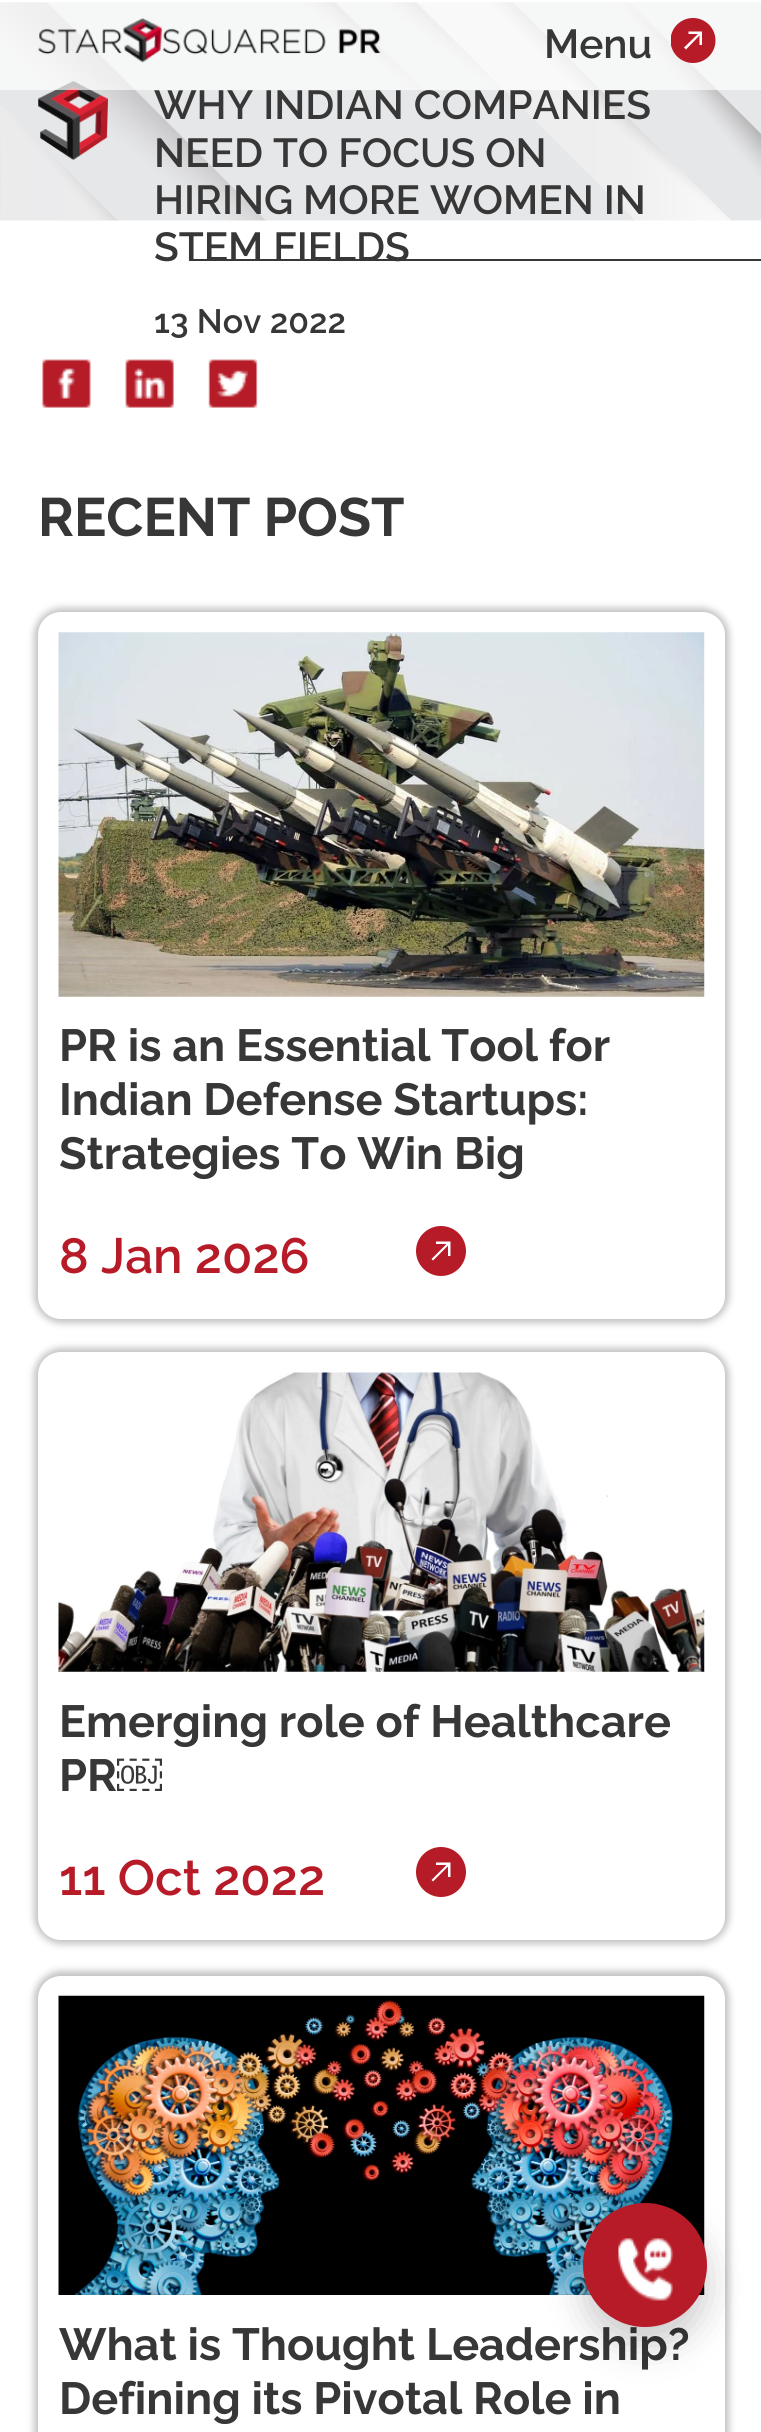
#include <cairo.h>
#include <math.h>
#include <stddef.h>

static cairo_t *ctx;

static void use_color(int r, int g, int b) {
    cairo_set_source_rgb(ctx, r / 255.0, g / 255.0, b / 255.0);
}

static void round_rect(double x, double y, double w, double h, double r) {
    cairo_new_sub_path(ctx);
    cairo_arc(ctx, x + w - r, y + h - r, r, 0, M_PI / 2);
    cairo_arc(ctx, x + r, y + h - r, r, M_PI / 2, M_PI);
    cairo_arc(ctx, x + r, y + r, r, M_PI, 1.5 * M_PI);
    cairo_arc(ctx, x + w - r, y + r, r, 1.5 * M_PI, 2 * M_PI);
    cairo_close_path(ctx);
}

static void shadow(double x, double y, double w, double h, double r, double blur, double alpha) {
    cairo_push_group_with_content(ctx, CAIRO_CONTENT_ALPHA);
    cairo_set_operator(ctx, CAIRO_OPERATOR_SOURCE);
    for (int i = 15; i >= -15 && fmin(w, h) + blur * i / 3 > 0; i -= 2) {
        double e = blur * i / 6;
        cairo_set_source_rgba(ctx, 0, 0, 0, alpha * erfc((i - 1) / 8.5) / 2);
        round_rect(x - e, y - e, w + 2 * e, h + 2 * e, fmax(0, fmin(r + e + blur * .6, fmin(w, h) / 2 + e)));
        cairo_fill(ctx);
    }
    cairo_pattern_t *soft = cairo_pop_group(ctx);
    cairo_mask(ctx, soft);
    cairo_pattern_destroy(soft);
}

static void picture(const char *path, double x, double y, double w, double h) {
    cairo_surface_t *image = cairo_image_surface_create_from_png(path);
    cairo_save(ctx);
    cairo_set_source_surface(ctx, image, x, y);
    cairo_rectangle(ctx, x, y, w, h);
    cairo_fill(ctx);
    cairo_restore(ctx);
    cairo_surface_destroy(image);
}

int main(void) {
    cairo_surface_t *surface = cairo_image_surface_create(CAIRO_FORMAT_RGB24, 761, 2432);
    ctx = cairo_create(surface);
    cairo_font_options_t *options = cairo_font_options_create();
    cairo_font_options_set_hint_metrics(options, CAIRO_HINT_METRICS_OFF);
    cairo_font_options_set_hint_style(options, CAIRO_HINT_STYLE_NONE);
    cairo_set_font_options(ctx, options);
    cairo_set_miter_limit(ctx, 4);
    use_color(255, 255, 255);
    cairo_paint(ctx);
    picture("img2.png", 0, 2, 761, 219);
    picture("img3.png", 38, 81, 70, 79);
    cairo_set_source_rgba(ctx, 1, 1, 1, 0.66);
    cairo_rectangle(ctx, 0, 2, 761, 88);
    cairo_fill(ctx);
    picture("img1.png", 38, 18, 343, 45);
    cairo_select_font_face(ctx, "Raleway SemiBold", CAIRO_FONT_SLANT_NORMAL, CAIRO_FONT_WEIGHT_NORMAL);
    cairo_set_font_size(ctx, 40.5);
    use_color(55, 55, 55);
    cairo_move_to(ctx, 544, 58);
    cairo_show_text(ctx, "Menu");
    cairo_save(ctx);
    cairo_rectangle(ctx, 671, 18, 45, 45);
    cairo_clip(ctx);
    use_color(182, 27, 40);
    cairo_arc(ctx, 693, 40.5, 22.5, 0, 2 * M_PI);
    cairo_fill(ctx);
    cairo_restore(ctx);
    use_color(255, 255, 255);
    cairo_new_path(ctx);
    cairo_move_to(ctx, 688.5, 31.5);
    cairo_line_to(ctx, 688.5, 34);
    cairo_line_to(ctx, 699.5, 34);
    cairo_line_to(ctx, 699.5, 45);
    cairo_line_to(ctx, 702, 45);
    cairo_line_to(ctx, 702, 31.5);
    cairo_close_path(ctx);
    cairo_fill(ctx);
    cairo_new_path(ctx);
    cairo_move_to(ctx, 684, 47.5);
    cairo_line_to(ctx, 699, 33);
    cairo_line_to(ctx, 700.5, 34.5);
    cairo_line_to(ctx, 686, 49.5);
    cairo_close_path(ctx);
    cairo_fill(ctx);
    use_color(55, 55, 55);
    cairo_move_to(ctx, 154, 119);
    cairo_show_text(ctx, "WHY INDIAN COMPANIES");
    cairo_move_to(ctx, 154, 167);
    cairo_show_text(ctx, "NEED TO FOCUS ON");
    cairo_move_to(ctx, 154, 214);
    cairo_show_text(ctx, "HIRING MORE WOMEN IN");
    cairo_rectangle(ctx, 191, 259, 570, 2);
    cairo_fill(ctx);
    cairo_move_to(ctx, 154, 261);
    cairo_show_text(ctx, "STEM FIELDS");
    cairo_set_font_size(ctx, 33.75);
    cairo_move_to(ctx, 154, 333);
    cairo_show_text(ctx, "13 Nov 2022");
    picture("img4.png", 42, 359, 49, 49);
    picture("img5.png", 125, 359, 49, 49);
    picture("img6.png", 208, 359, 50, 49);
    cairo_select_font_face(ctx, "Raleway", CAIRO_FONT_SLANT_NORMAL, CAIRO_FONT_WEIGHT_BOLD);
    cairo_set_font_size(ctx, 54);
    cairo_move_to(ctx, 38, 536);
    cairo_show_text(ctx, "RECENT POST");
    use_color(194, 194, 194);
    shadow(34, 608, 695, 715, 27, 3.5, 1);
    use_color(255, 255, 255);
    round_rect(38, 612, 687, 707, 23);
    cairo_fill(ctx);
    picture("img7.png", 58, 632, 647, 365);
    cairo_set_font_size(ctx, 45);
    use_color(55, 55, 55);
    cairo_move_to(ctx, 59, 1061);
    cairo_show_text(ctx, "PR is an Essential Tool for");
    cairo_move_to(ctx, 59, 1115);
    cairo_show_text(ctx, "Indian Defense Startups:");
    cairo_move_to(ctx, 59, 1169);
    cairo_show_text(ctx, "Strategies To Win Big");
    use_color(182, 27, 40);
    cairo_new_path(ctx);
    cairo_arc(ctx, 441, 1251, 25, 0, 2 * M_PI);
    cairo_fill(ctx);
    use_color(255, 255, 255);
    cairo_new_path(ctx);
    cairo_move_to(ctx, 436, 1241.5);
    cairo_line_to(ctx, 436, 1244);
    cairo_line_to(ctx, 448, 1244);
    cairo_line_to(ctx, 448, 1256);
    cairo_line_to(ctx, 450.5, 1256);
    cairo_line_to(ctx, 450.5, 1241.5);
    cairo_close_path(ctx);
    cairo_fill(ctx);
    cairo_new_path(ctx);
    cairo_move_to(ctx, 431.5, 1259);
    cairo_line_to(ctx, 448, 1242.5);
    cairo_line_to(ctx, 449.5, 1244);
    cairo_line_to(ctx, 433, 1260.5);
    cairo_close_path(ctx);
    cairo_fill(ctx);
    cairo_select_font_face(ctx, "Raleway SemiBold", CAIRO_FONT_SLANT_NORMAL, CAIRO_FONT_WEIGHT_NORMAL);
    cairo_set_font_size(ctx, 49.5);
    use_color(183, 27, 40);
    cairo_move_to(ctx, 59, 1273);
    cairo_show_text(ctx, "8 Jan 2026");
    use_color(194, 194, 194);
    shadow(34, 1348, 695, 596, 27, 3.5, 1);
    use_color(255, 255, 255);
    round_rect(38, 1352, 687, 588, 23);
    cairo_fill(ctx);
    picture("img8.png", 58, 1372, 647, 300);
    cairo_select_font_face(ctx, "Raleway", CAIRO_FONT_SLANT_NORMAL, CAIRO_FONT_WEIGHT_BOLD);
    cairo_set_font_size(ctx, 45);
    use_color(55, 55, 55);
    cairo_move_to(ctx, 59, 1737);
    cairo_show_text(ctx, "Emerging role of Healthcare");
    cairo_move_to(ctx, 59, 1791);
    cairo_show_text(ctx, "PR");
    cairo_select_font_face(ctx, "Liberation Sans", CAIRO_FONT_SLANT_NORMAL, CAIRO_FONT_WEIGHT_BOLD);
    cairo_move_to(ctx, 117, 1791);
    cairo_show_text(ctx, "￼");
    use_color(182, 27, 40);
    cairo_new_path(ctx);
    cairo_arc(ctx, 441, 1872, 25, 0, 2 * M_PI);
    cairo_fill(ctx);
    use_color(255, 255, 255);
    cairo_new_path(ctx);
    cairo_move_to(ctx, 436, 1862.5);
    cairo_line_to(ctx, 436, 1865);
    cairo_line_to(ctx, 448, 1865);
    cairo_line_to(ctx, 448, 1877);
    cairo_line_to(ctx, 450.5, 1877);
    cairo_line_to(ctx, 450.5, 1862.5);
    cairo_close_path(ctx);
    cairo_fill(ctx);
    cairo_new_path(ctx);
    cairo_move_to(ctx, 431.5, 1880);
    cairo_line_to(ctx, 448, 1863.5);
    cairo_line_to(ctx, 449.5, 1865);
    cairo_line_to(ctx, 433, 1881.5);
    cairo_close_path(ctx);
    cairo_fill(ctx);
    cairo_select_font_face(ctx, "Raleway SemiBold", CAIRO_FONT_SLANT_NORMAL, CAIRO_FONT_WEIGHT_NORMAL);
    cairo_set_font_size(ctx, 49.5);
    use_color(183, 27, 40);
    cairo_move_to(ctx, 59, 1895);
    cairo_show_text(ctx, "11 Oct 2022");
    use_color(194, 194, 194);
    shadow(34, 1971, 695, 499, 27, 3.5, 1);
    use_color(255, 255, 255);
    round_rect(38, 1976, 687, 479, 23);
    cairo_fill(ctx);
    picture("img9.png", 58, 1995, 647, 300);
    cairo_select_font_face(ctx, "Raleway", CAIRO_FONT_SLANT_NORMAL, CAIRO_FONT_WEIGHT_BOLD);
    cairo_set_font_size(ctx, 45);
    use_color(55, 55, 55);
    cairo_move_to(ctx, 59, 2360);
    cairo_show_text(ctx, "What is Thought Leadership?");
    cairo_move_to(ctx, 59, 2414);
    cairo_show_text(ctx, "Defining its Pivotal Role in");
    use_color(0, 0, 0);
    shadow(583, 2221, 124, 124, 62, 18, 0.2);
    use_color(183, 27, 40);
    cairo_arc(ctx, 645, 2265, 62, 0, 2 * M_PI);
    cairo_fill(ctx);
    picture("img10.png", 618, 2238, 55, 63);
    cairo_surface_write_to_png(surface, "result.png");
    cairo_font_options_destroy(options);
    cairo_destroy(ctx);
    cairo_surface_destroy(surface);
    return 0;
}
